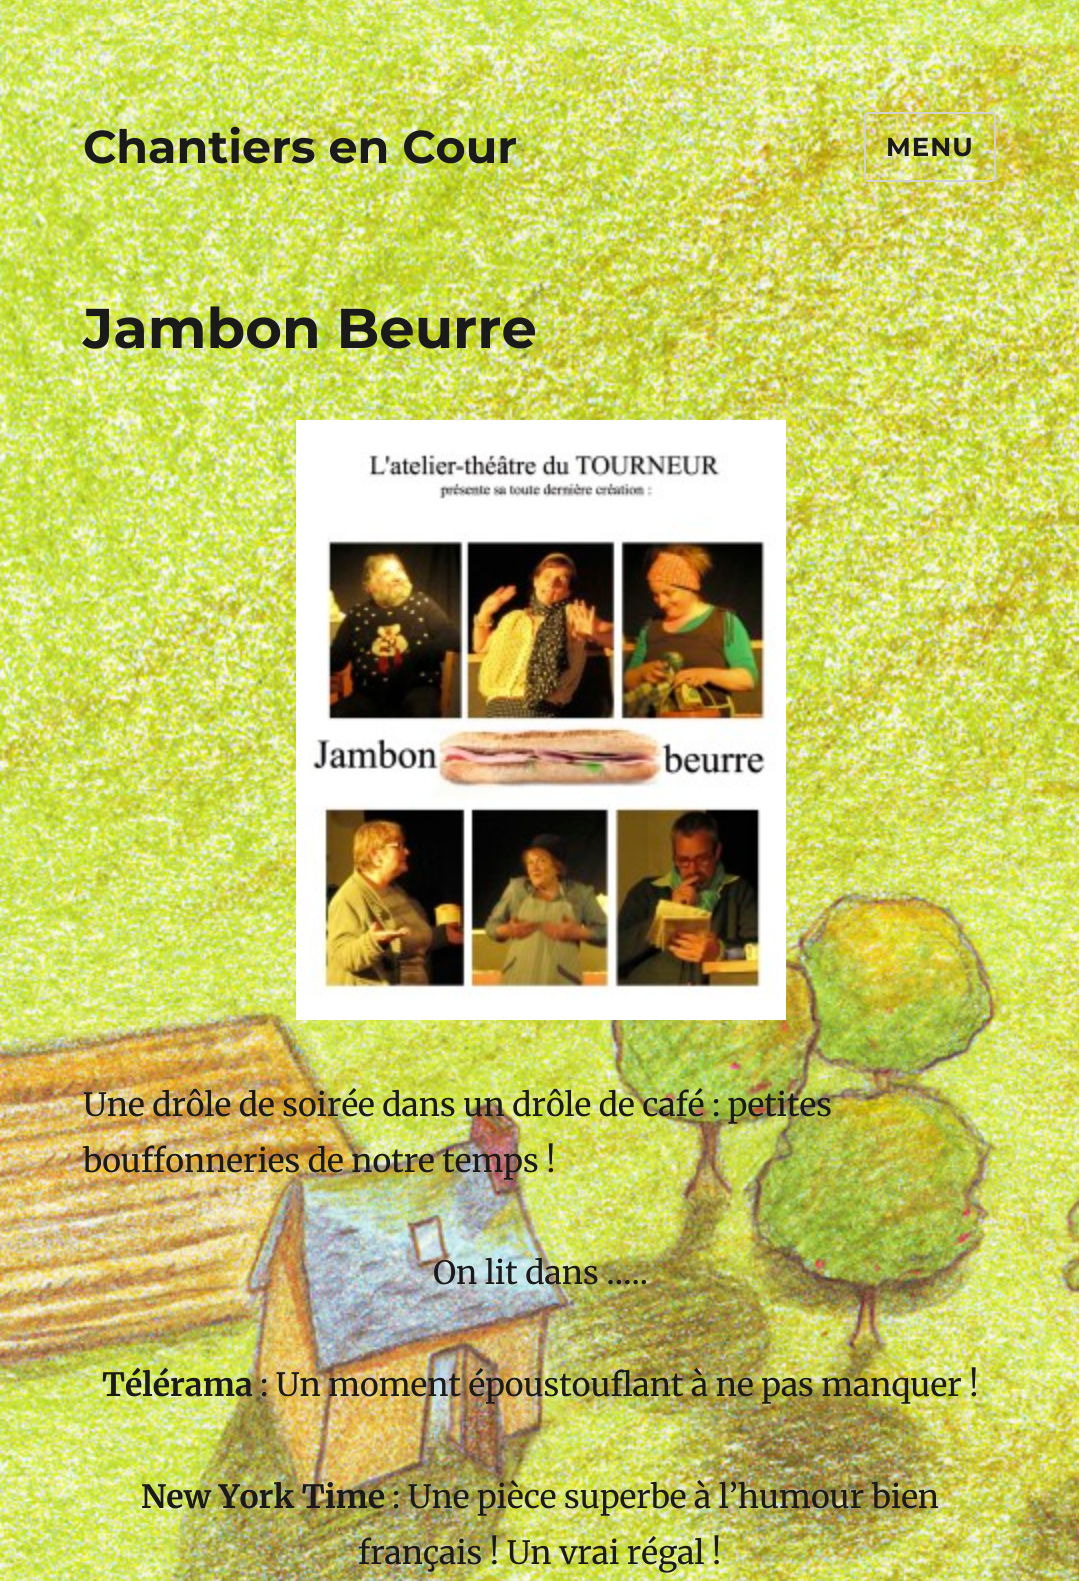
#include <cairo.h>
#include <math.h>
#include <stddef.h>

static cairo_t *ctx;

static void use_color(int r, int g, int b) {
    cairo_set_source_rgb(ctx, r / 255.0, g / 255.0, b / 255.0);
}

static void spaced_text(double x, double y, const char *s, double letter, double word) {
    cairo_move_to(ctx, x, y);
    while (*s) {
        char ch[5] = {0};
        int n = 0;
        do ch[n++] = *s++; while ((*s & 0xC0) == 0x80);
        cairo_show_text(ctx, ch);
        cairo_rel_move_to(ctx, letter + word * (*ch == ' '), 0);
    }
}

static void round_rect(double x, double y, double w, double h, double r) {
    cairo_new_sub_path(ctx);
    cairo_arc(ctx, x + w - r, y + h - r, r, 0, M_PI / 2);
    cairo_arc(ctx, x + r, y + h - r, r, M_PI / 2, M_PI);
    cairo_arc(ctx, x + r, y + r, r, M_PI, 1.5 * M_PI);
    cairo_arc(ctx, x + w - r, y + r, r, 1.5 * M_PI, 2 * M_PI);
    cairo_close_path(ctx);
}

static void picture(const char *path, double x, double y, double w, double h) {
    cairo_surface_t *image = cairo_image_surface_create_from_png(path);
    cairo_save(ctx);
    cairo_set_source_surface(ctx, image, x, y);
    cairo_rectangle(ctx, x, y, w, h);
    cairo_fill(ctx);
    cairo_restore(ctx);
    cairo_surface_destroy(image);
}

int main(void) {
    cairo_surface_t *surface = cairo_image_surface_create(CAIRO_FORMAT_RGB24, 1079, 1581);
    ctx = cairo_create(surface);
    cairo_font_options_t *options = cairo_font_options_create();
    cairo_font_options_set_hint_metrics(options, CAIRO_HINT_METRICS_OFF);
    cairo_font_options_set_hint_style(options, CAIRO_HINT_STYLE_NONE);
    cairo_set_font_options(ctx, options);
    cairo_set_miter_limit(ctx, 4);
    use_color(255, 255, 255);
    cairo_paint(ctx);
    picture("img1.png", 0, 0, 1079, 1581);
    cairo_select_font_face(ctx, "Montserrat", CAIRO_FONT_SLANT_NORMAL, CAIRO_FONT_WEIGHT_BOLD);
    cairo_set_font_size(ctx, 46);
    use_color(26, 26, 26);
    cairo_move_to(ctx, 83, 163);
    cairo_show_text(ctx, "Chantiers en Cour");
    round_rect(865, 113, 130, 68, 3);
    use_color(209, 209, 209);
    cairo_stroke(ctx);
    cairo_set_font_size(ctx, 26);
    use_color(26, 26, 26);
    spaced_text(886, 156, "MENU", 1, 0);
    cairo_set_font_size(ctx, 56);
    cairo_move_to(ctx, 83, 348);
    cairo_show_text(ctx, "Jambon Beurre");
    picture("img2.png", 296, 420, 490, 600);
    cairo_select_font_face(ctx, "Merriweather", CAIRO_FONT_SLANT_NORMAL, CAIRO_FONT_WEIGHT_NORMAL);
    cairo_set_font_size(ctx, 32);
    cairo_move_to(ctx, 83, 1116);
    cairo_show_text(ctx, "Une drôle de soirée dans un drôle de café : petites");
    cairo_move_to(ctx, 83, 1172);
    cairo_show_text(ctx, "bouffonneries de notre temps !");
    cairo_move_to(ctx, 433, 1284);
    cairo_show_text(ctx, "On lit dans …..");
    cairo_select_font_face(ctx, "Merriweather", CAIRO_FONT_SLANT_NORMAL, CAIRO_FONT_WEIGHT_BOLD);
    cairo_move_to(ctx, 102, 1396);
    cairo_show_text(ctx, "Télérama");
    cairo_select_font_face(ctx, "Merriweather", CAIRO_FONT_SLANT_NORMAL, CAIRO_FONT_WEIGHT_NORMAL);
    cairo_move_to(ctx, 260, 1396);
    cairo_show_text(ctx, ": Un moment époustouflant à ne pas manquer !");
    cairo_select_font_face(ctx, "Merriweather", CAIRO_FONT_SLANT_NORMAL, CAIRO_FONT_WEIGHT_BOLD);
    cairo_move_to(ctx, 141, 1508);
    cairo_show_text(ctx, "New York Time");
    cairo_select_font_face(ctx, "Merriweather", CAIRO_FONT_SLANT_NORMAL, CAIRO_FONT_WEIGHT_NORMAL);
    cairo_move_to(ctx, 392, 1508);
    cairo_show_text(ctx, ": Une pièce superbe à l’humour bien");
    cairo_move_to(ctx, 358, 1564);
    cairo_show_text(ctx, "français ! Un vrai régal !");
    cairo_surface_write_to_png(surface, "result.png");
    cairo_font_options_destroy(options);
    cairo_destroy(ctx);
    cairo_surface_destroy(surface);
    return 0;
}
